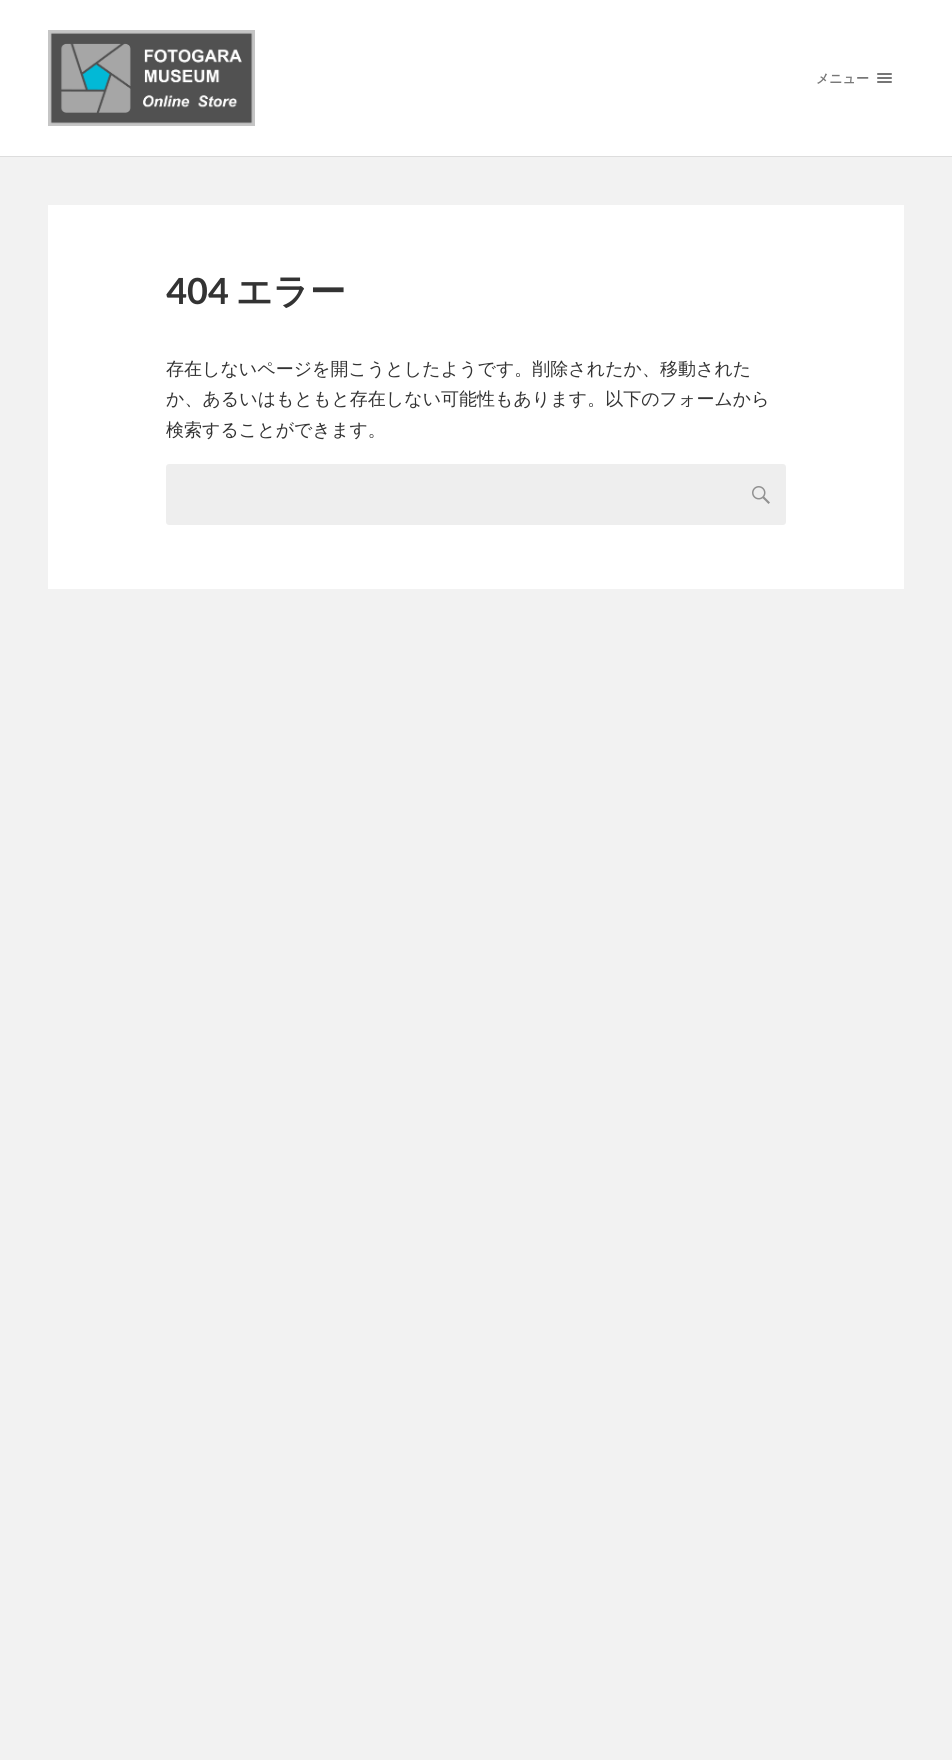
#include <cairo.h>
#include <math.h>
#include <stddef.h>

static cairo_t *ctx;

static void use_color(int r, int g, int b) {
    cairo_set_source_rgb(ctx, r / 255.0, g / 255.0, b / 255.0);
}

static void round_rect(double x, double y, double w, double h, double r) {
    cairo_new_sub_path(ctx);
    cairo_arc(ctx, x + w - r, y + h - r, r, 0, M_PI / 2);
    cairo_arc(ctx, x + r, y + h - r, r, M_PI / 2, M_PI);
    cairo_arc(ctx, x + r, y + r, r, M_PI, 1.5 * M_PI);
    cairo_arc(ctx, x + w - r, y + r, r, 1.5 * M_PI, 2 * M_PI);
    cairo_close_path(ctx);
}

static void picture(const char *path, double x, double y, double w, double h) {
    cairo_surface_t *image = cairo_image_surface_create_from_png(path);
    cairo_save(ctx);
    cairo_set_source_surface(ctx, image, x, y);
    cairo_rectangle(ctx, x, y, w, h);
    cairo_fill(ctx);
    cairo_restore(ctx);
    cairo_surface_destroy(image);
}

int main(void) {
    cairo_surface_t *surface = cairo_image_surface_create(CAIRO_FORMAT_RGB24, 952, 1760);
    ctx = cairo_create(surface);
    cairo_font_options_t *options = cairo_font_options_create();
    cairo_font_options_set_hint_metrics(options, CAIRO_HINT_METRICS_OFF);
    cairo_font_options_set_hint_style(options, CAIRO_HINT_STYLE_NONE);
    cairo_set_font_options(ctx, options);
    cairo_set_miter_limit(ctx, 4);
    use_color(242, 242, 242);
    cairo_paint(ctx);
    use_color(255, 255, 255);
    cairo_rectangle(ctx, 0, 0, 952, 156);
    cairo_fill(ctx);
    use_color(221, 221, 221);
    cairo_rectangle(ctx, 0, 156, 952, 1);
    cairo_fill(ctx);
    picture("img1.png", 48, 30, 207, 96);
    cairo_select_font_face(ctx, "WenQuanYi Zen Hei", CAIRO_FONT_SLANT_NORMAL, CAIRO_FONT_WEIGHT_BOLD);
    cairo_set_font_size(ctx, 13);
    use_color(118, 118, 118);
    cairo_move_to(ctx, 816, 83);
    cairo_show_text(ctx, "メニュー");
    round_rect(877, 73, 15, 2, 1);
    cairo_fill(ctx);
    round_rect(877, 77, 15, 2, 1);
    cairo_fill(ctx);
    round_rect(877, 81, 15, 2, 1);
    cairo_fill(ctx);
    use_color(255, 255, 255);
    cairo_rectangle(ctx, 48, 205, 856, 384);
    cairo_fill(ctx);
    cairo_select_font_face(ctx, "Lato", CAIRO_FONT_SLANT_NORMAL, CAIRO_FONT_WEIGHT_BOLD);
    cairo_set_font_size(ctx, 36);
    use_color(51, 51, 51);
    cairo_move_to(ctx, 166, 304);
    cairo_show_text(ctx, "404");
    cairo_select_font_face(ctx, "WenQuanYi Zen Hei", CAIRO_FONT_SLANT_NORMAL, CAIRO_FONT_WEIGHT_BOLD);
    cairo_move_to(ctx, 236, 304);
    cairo_show_text(ctx, "エラー");
    cairo_select_font_face(ctx, "WenQuanYi Zen Hei Medium", CAIRO_FONT_SLANT_NORMAL, CAIRO_FONT_WEIGHT_NORMAL);
    cairo_set_font_size(ctx, 18);
    cairo_move_to(ctx, 166, 375);
    cairo_show_text(ctx, "存在しないページを開こうとしたようです。削除されたか、移動された");
    cairo_move_to(ctx, 166, 405);
    cairo_show_text(ctx, "か、あるいはもともと存在しない可能性もあります。以下のフォームから");
    cairo_move_to(ctx, 166, 436);
    cairo_show_text(ctx, "検索することができます。");
    use_color(238, 238, 238);
    round_rect(166, 464, 620, 61, 3);
    cairo_fill(ctx);
    picture("img2.png", 752, 486, 18, 18);
    cairo_surface_write_to_png(surface, "result.png");
    cairo_font_options_destroy(options);
    cairo_destroy(ctx);
    cairo_surface_destroy(surface);
    return 0;
}
